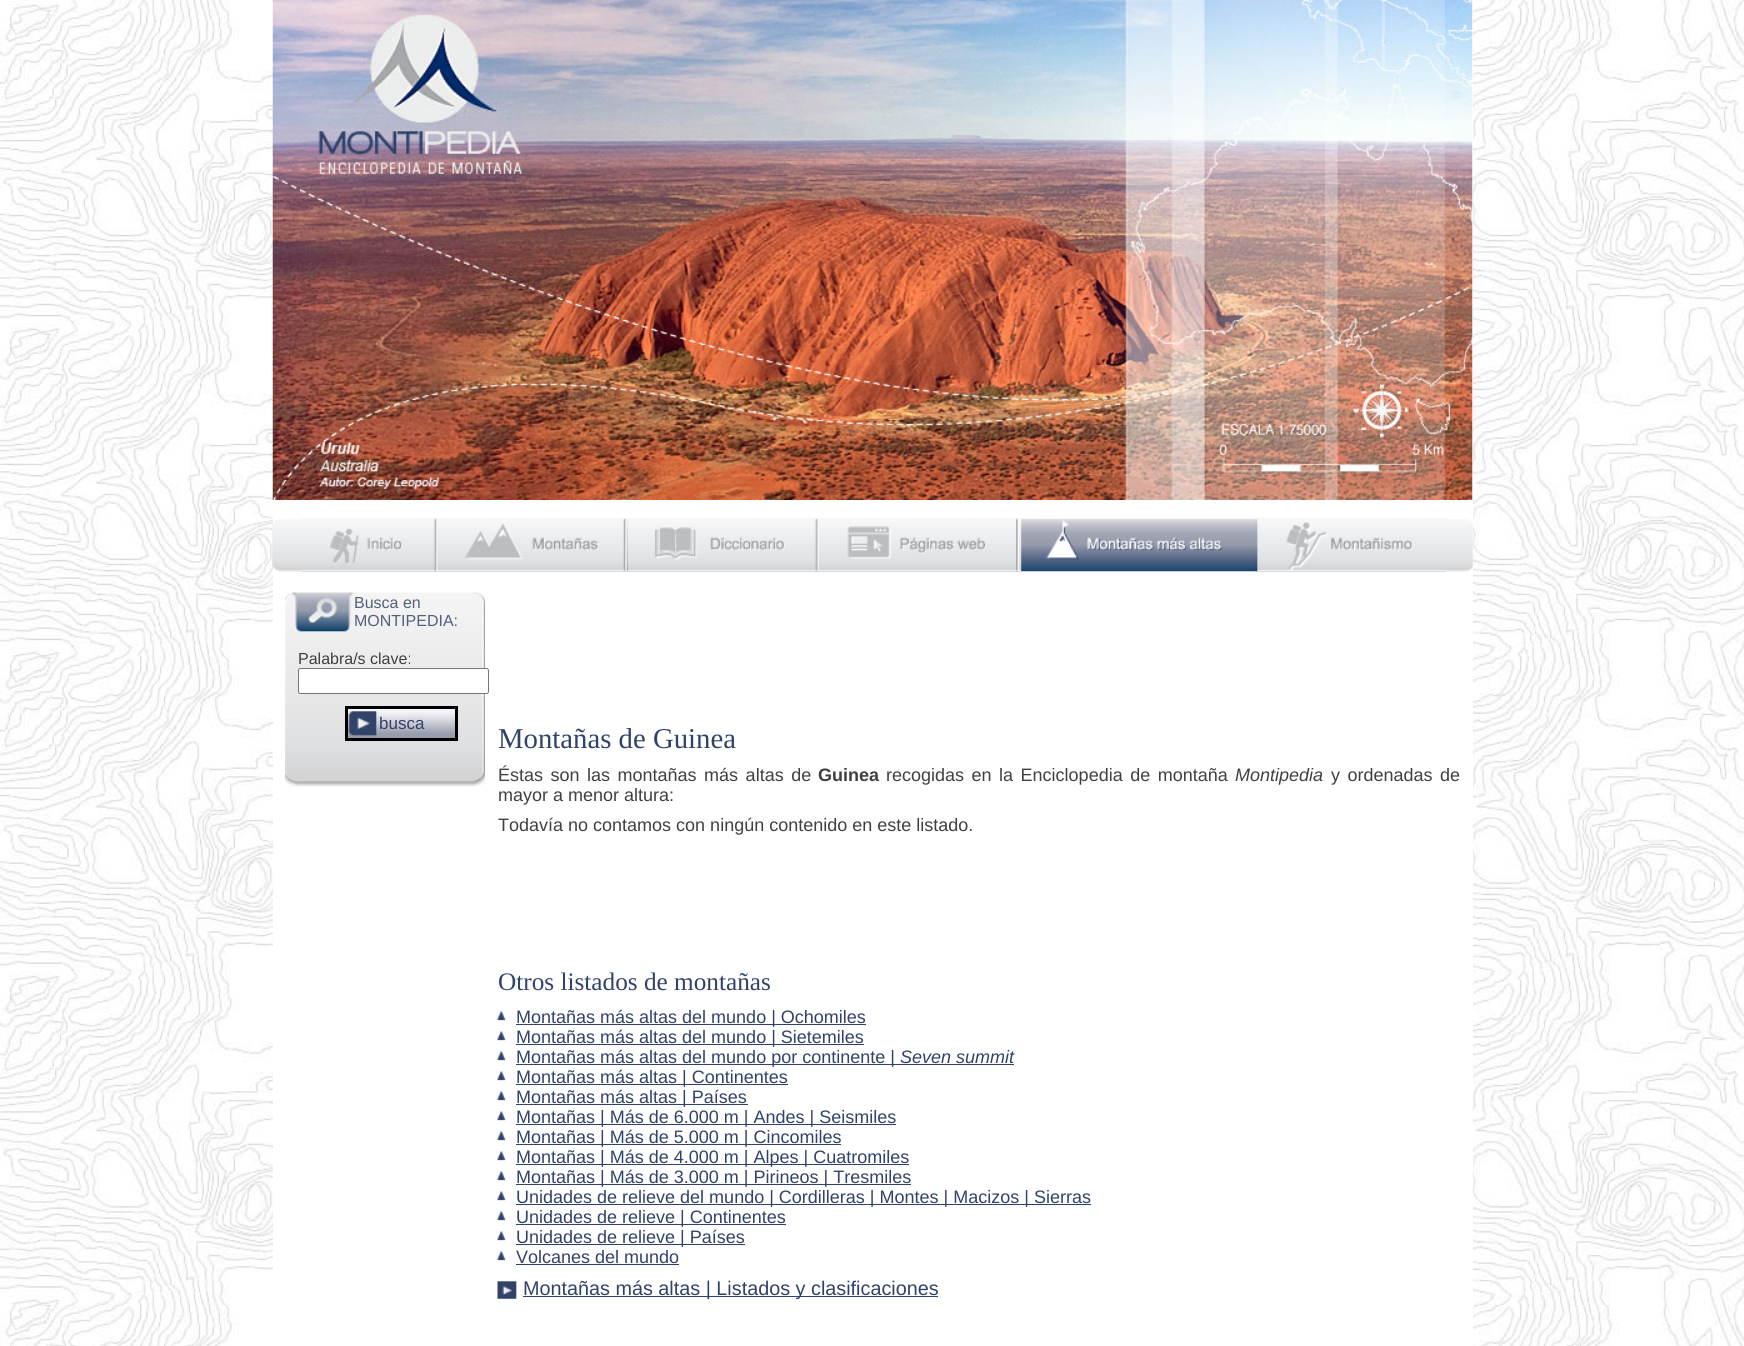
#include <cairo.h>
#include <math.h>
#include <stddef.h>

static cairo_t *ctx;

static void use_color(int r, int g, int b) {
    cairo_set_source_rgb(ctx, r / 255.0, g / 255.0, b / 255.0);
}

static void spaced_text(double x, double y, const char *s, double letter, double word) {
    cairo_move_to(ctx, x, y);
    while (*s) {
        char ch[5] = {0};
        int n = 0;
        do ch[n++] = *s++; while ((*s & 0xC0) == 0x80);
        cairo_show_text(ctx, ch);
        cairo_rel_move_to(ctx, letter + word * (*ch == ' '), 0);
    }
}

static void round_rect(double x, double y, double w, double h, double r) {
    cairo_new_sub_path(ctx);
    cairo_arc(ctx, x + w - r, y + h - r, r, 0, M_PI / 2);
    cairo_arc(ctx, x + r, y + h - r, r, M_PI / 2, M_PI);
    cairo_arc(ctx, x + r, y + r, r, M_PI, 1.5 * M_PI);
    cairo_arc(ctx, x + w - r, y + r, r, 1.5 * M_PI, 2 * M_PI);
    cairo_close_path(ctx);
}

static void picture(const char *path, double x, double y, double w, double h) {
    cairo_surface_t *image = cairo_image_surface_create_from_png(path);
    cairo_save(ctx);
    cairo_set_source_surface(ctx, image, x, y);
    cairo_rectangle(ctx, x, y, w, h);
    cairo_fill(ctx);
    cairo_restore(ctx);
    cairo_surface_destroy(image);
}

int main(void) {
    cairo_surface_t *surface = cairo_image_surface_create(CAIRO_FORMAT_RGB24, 1744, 1346);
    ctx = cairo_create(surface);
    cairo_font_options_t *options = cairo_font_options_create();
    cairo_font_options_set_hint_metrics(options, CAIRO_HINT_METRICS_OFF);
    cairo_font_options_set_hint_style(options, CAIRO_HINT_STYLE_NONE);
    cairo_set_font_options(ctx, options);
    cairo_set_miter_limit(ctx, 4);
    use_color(255, 255, 255);
    cairo_paint(ctx);
    picture("img1.png", 0, 0, 1744, 1346);
    use_color(255, 255, 255);
    cairo_rectangle(ctx, 273, 0, 1200, 1346);
    cairo_fill(ctx);
    picture("img2.png", 272, 0, 1201, 500);
    picture("img3.png", 272, 518, 168, 54);
    picture("img4.png", 272, 518, 168, 54);
    picture("img5.png", 440, 518, 188, 54);
    picture("img6.png", 440, 518, 188, 54);
    picture("img7.png", 627, 518, 193, 54);
    picture("img8.png", 627, 518, 193, 54);
    picture("img9.png", 820, 518, 202, 54);
    picture("img10.png", 820, 518, 202, 54);
    picture("img11.png", 1021, 518, 237, 54);
    picture("img12.png", 1257, 518, 216, 54);
    picture("img13.png", 1257, 519, 216, 53);
    picture("img14.png", 285, 592, 200, 195);
    cairo_select_font_face(ctx, "Liberation Sans", CAIRO_FONT_SLANT_NORMAL, CAIRO_FONT_WEIGHT_NORMAL);
    cairo_set_font_size(ctx, 16);
    use_color(81, 96, 123);
    cairo_move_to(ctx, 354, 608);
    cairo_show_text(ctx, "Busca en");
    cairo_move_to(ctx, 354, 626);
    cairo_show_text(ctx, "MONTIPEDIA:");
    use_color(64, 64, 65);
    cairo_move_to(ctx, 298, 664);
    cairo_show_text(ctx, "Palabra/s clave:");
    use_color(255, 255, 255);
    round_rect(298.5, 668.5, 190, 25, 2);
    cairo_fill_preserve(ctx);
    use_color(118, 118, 118);
    cairo_set_line_width(ctx, 1);
    cairo_stroke(ctx);
    picture("img15.png", 348, 709, 110, 33);
    cairo_rectangle(ctx, 346.5, 707.5, 110, 32);
    use_color(0, 0, 0);
    cairo_set_line_width(ctx, 3);
    cairo_stroke(ctx);
    cairo_set_font_size(ctx, 17);
    use_color(49, 66, 106);
    cairo_move_to(ctx, 379, 729);
    cairo_show_text(ctx, "busca");
    cairo_select_font_face(ctx, "Liberation Serif", CAIRO_FONT_SLANT_NORMAL, CAIRO_FONT_WEIGHT_NORMAL);
    cairo_set_font_size(ctx, 28.75);
    cairo_move_to(ctx, 498, 748);
    cairo_show_text(ctx, "Montañas de Guinea");
    cairo_select_font_face(ctx, "Liberation Sans", CAIRO_FONT_SLANT_NORMAL, CAIRO_FONT_WEIGHT_NORMAL);
    cairo_set_font_size(ctx, 18);
    use_color(64, 64, 65);
    spaced_text(498, 781, "Éstas son las montañas más altas de", 0, 2.5);
    cairo_select_font_face(ctx, "Liberation Sans", CAIRO_FONT_SLANT_NORMAL, CAIRO_FONT_WEIGHT_BOLD);
    cairo_move_to(ctx, 818, 781);
    cairo_show_text(ctx, "Guinea");
    cairo_select_font_face(ctx, "Liberation Sans", CAIRO_FONT_SLANT_NORMAL, CAIRO_FONT_WEIGHT_NORMAL);
    spaced_text(886, 781, "recogidas en la Enciclopedia de montaña", 0, 2.5);
    cairo_select_font_face(ctx, "Liberation Sans", CAIRO_FONT_SLANT_ITALIC, CAIRO_FONT_WEIGHT_NORMAL);
    cairo_move_to(ctx, 1235, 781);
    cairo_show_text(ctx, "Montipedia");
    cairo_select_font_face(ctx, "Liberation Sans", CAIRO_FONT_SLANT_NORMAL, CAIRO_FONT_WEIGHT_NORMAL);
    spaced_text(1331, 781, "y ordenadas de", 0, 2.5);
    cairo_move_to(ctx, 498, 801);
    cairo_show_text(ctx, "mayor a menor altura:");
    cairo_move_to(ctx, 498, 831);
    cairo_show_text(ctx, "Todavía no contamos con ningún contenido en este listado.");
    cairo_select_font_face(ctx, "Liberation Serif", CAIRO_FONT_SLANT_NORMAL, CAIRO_FONT_WEIGHT_NORMAL);
    cairo_set_font_size(ctx, 25.25);
    use_color(49, 66, 106);
    cairo_move_to(ctx, 498, 990);
    cairo_show_text(ctx, "Otros listados de montañas");
    picture("img16.png", 497, 1011, 9, 10);
    cairo_rectangle(ctx, 516, 1024, 350, 1);
    cairo_fill(ctx);
    cairo_select_font_face(ctx, "Liberation Sans", CAIRO_FONT_SLANT_NORMAL, CAIRO_FONT_WEIGHT_NORMAL);
    cairo_set_font_size(ctx, 18);
    cairo_move_to(ctx, 516, 1023);
    cairo_show_text(ctx, "Montañas más altas del mundo | Ochomiles");
    picture("img16.png", 497, 1031, 9, 10);
    cairo_rectangle(ctx, 516, 1044, 348, 1);
    cairo_fill(ctx);
    cairo_move_to(ctx, 516, 1043);
    cairo_show_text(ctx, "Montañas más altas del mundo | Sietemiles");
    picture("img16.png", 497, 1051, 9, 10);
    cairo_rectangle(ctx, 516, 1064, 498, 1);
    cairo_fill(ctx);
    cairo_move_to(ctx, 516, 1063);
    cairo_show_text(ctx, "Montañas más altas del mundo por continente |");
    cairo_select_font_face(ctx, "Liberation Sans", CAIRO_FONT_SLANT_ITALIC, CAIRO_FONT_WEIGHT_NORMAL);
    cairo_move_to(ctx, 900, 1063);
    cairo_show_text(ctx, "Seven summit");
    picture("img16.png", 497, 1071, 9, 10);
    cairo_rectangle(ctx, 516, 1084, 272, 1);
    cairo_fill(ctx);
    cairo_select_font_face(ctx, "Liberation Sans", CAIRO_FONT_SLANT_NORMAL, CAIRO_FONT_WEIGHT_NORMAL);
    cairo_move_to(ctx, 516, 1083);
    cairo_show_text(ctx, "Montañas más altas | Continentes");
    picture("img16.png", 497, 1091, 9, 10);
    cairo_rectangle(ctx, 516, 1104, 232, 1);
    cairo_fill(ctx);
    cairo_move_to(ctx, 516, 1103);
    cairo_show_text(ctx, "Montañas más altas | Países");
    picture("img16.png", 497, 1111, 9, 10);
    cairo_rectangle(ctx, 516, 1124, 380, 1);
    cairo_fill(ctx);
    cairo_move_to(ctx, 516, 1123);
    cairo_show_text(ctx, "Montañas | Más de 6.000 m | Andes | Seismiles");
    picture("img16.png", 497, 1131, 9, 10);
    cairo_rectangle(ctx, 516, 1144, 325, 1);
    cairo_fill(ctx);
    cairo_move_to(ctx, 516, 1143);
    cairo_show_text(ctx, "Montañas | Más de 5.000 m | Cincomiles");
    picture("img16.png", 497, 1151, 9, 10);
    cairo_rectangle(ctx, 516, 1164, 393, 1);
    cairo_fill(ctx);
    cairo_move_to(ctx, 516, 1163);
    cairo_show_text(ctx, "Montañas | Más de 4.000 m | Alpes | Cuatromiles");
    picture("img17.png", 497, 1171, 9, 10);
    cairo_rectangle(ctx, 516, 1184, 395, 1);
    cairo_fill(ctx);
    cairo_move_to(ctx, 516, 1183);
    cairo_show_text(ctx, "Montañas | Más de 3.000 m | Pirineos | Tresmiles");
    picture("img16.png", 497, 1191, 9, 10);
    cairo_rectangle(ctx, 516, 1204, 575, 1);
    cairo_fill(ctx);
    cairo_move_to(ctx, 516, 1203);
    cairo_show_text(ctx, "Unidades de relieve del mundo | Cordilleras | Montes | Macizos | Sierras");
    picture("img16.png", 497, 1211, 9, 10);
    cairo_rectangle(ctx, 516, 1224, 270, 1);
    cairo_fill(ctx);
    cairo_move_to(ctx, 516, 1223);
    cairo_show_text(ctx, "Unidades de relieve | Continentes");
    picture("img16.png", 497, 1231, 9, 10);
    cairo_rectangle(ctx, 516, 1244, 229, 1);
    cairo_fill(ctx);
    cairo_move_to(ctx, 516, 1243);
    cairo_show_text(ctx, "Unidades de relieve | Países");
    picture("img16.png", 497, 1251, 9, 10);
    cairo_move_to(ctx, 516, 1263);
    cairo_show_text(ctx, "Volcanes del mundo");
    cairo_rectangle(ctx, 516, 1264, 163, 1);
    cairo_fill(ctx);
    picture("img18.png", 497, 1281, 20, 18);
    cairo_rectangle(ctx, 523, 1296, 415, 1);
    cairo_fill(ctx);
    cairo_set_font_size(ctx, 19.8);
    cairo_move_to(ctx, 523, 1295);
    cairo_show_text(ctx, "Montañas más altas | Listados y clasificaciones");
    cairo_surface_write_to_png(surface, "result.png");
    cairo_font_options_destroy(options);
    cairo_destroy(ctx);
    cairo_surface_destroy(surface);
    return 0;
}
